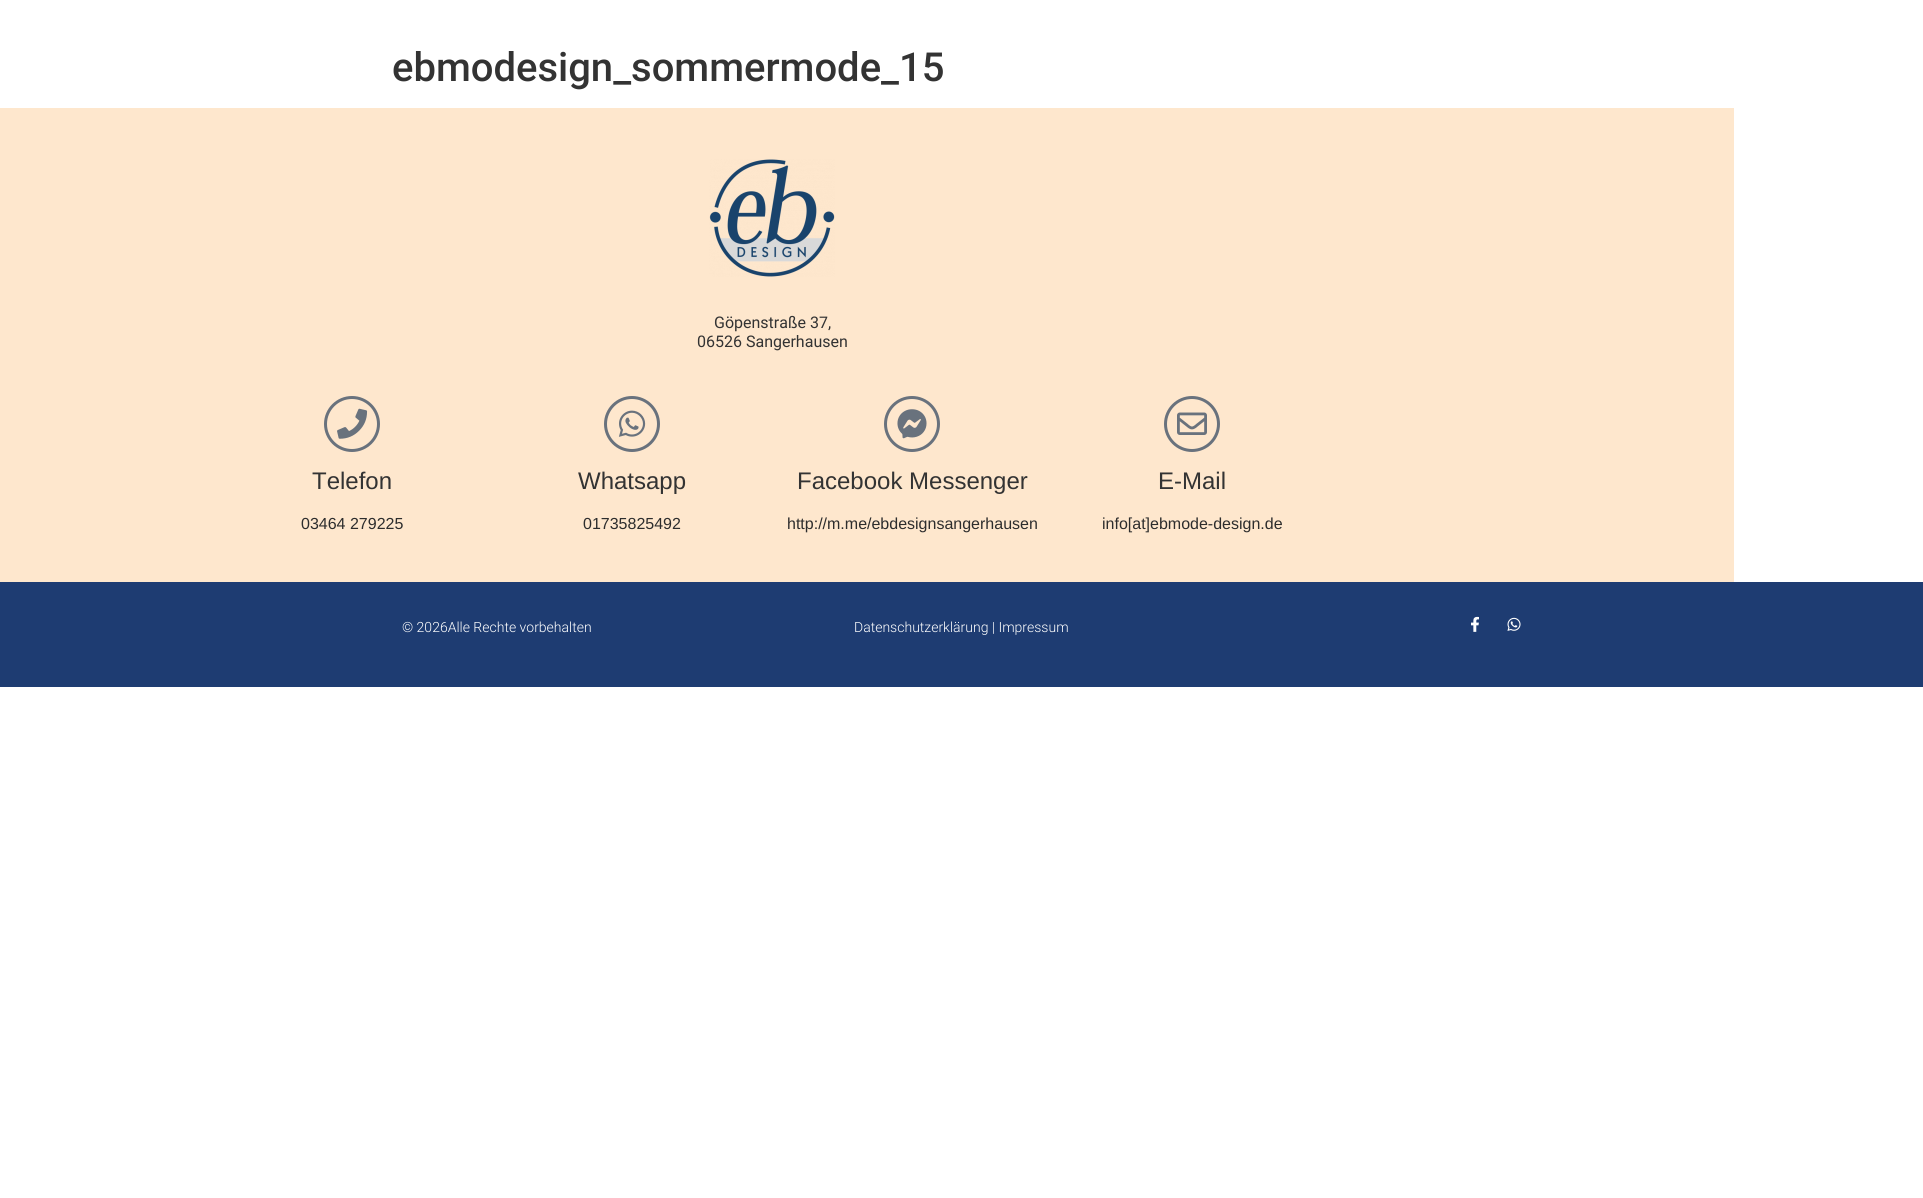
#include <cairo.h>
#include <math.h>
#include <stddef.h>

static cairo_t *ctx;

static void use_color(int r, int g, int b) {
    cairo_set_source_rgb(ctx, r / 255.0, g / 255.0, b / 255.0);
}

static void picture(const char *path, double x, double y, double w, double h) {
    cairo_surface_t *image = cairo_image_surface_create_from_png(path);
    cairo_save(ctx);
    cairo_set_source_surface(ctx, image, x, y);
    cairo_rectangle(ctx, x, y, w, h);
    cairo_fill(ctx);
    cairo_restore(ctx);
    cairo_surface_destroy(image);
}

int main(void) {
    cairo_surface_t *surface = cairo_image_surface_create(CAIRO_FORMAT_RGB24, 1923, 1198);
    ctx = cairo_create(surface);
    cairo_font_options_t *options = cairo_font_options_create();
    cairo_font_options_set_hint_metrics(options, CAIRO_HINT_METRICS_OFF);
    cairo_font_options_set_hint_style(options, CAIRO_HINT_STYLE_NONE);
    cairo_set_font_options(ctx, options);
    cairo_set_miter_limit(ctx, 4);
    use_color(255, 255, 255);
    cairo_paint(ctx);
    cairo_select_font_face(ctx, "Roboto Medium", CAIRO_FONT_SLANT_NORMAL, CAIRO_FONT_WEIGHT_NORMAL);
    cairo_set_font_size(ctx, 40);
    use_color(51, 51, 51);
    cairo_move_to(ctx, 392, 81);
    cairo_show_text(ctx, "ebmodesign_sommermode_15");
    use_color(254, 231, 205);
    cairo_rectangle(ctx, 0, 108, 1734, 474);
    cairo_fill(ctx);
    picture("img1.png", 709, 159, 126, 118);
    cairo_select_font_face(ctx, "Roboto", CAIRO_FONT_SLANT_NORMAL, CAIRO_FONT_WEIGHT_NORMAL);
    cairo_set_font_size(ctx, 16);
    use_color(51, 51, 51);
    cairo_move_to(ctx, 714, 328);
    cairo_show_text(ctx, "Göpenstraße 37,");
    cairo_move_to(ctx, 697, 347);
    cairo_show_text(ctx, "06526 Sangerhausen");
    cairo_new_path(ctx);
    cairo_arc(ctx, 352, 424, 26.5, 0, 2 * M_PI);
    use_color(105, 114, 125);
    cairo_set_line_width(ctx, 3);
    cairo_stroke(ctx);
    picture("img2.png", 337, 408, 31, 31);
    cairo_select_font_face(ctx, "Liberation Sans", CAIRO_FONT_SLANT_NORMAL, CAIRO_FONT_WEIGHT_NORMAL);
    cairo_set_font_size(ctx, 24);
    use_color(51, 51, 51);
    cairo_move_to(ctx, 312, 489);
    cairo_show_text(ctx, "Telefon");
    cairo_set_font_size(ctx, 16);
    use_color(45, 45, 45);
    cairo_move_to(ctx, 301, 529);
    cairo_show_text(ctx, "03464 279225");
    cairo_new_path(ctx);
    cairo_arc(ctx, 632, 424, 26.5, 0, 2 * M_PI);
    use_color(105, 114, 125);
    cairo_stroke(ctx);
    picture("img3.png", 618, 410, 28, 27);
    cairo_set_font_size(ctx, 24);
    use_color(51, 51, 51);
    cairo_move_to(ctx, 578, 489);
    cairo_show_text(ctx, "Whatsapp");
    cairo_set_font_size(ctx, 16);
    use_color(45, 45, 45);
    cairo_move_to(ctx, 583, 529);
    cairo_show_text(ctx, "01735825492");
    cairo_new_path(ctx);
    cairo_arc(ctx, 912, 424, 26.5, 0, 2 * M_PI);
    use_color(105, 114, 125);
    cairo_stroke(ctx);
    picture("img4.png", 897, 409, 30, 30);
    cairo_set_font_size(ctx, 24);
    use_color(51, 51, 51);
    cairo_move_to(ctx, 797, 489);
    cairo_show_text(ctx, "Facebook Messenger");
    cairo_set_font_size(ctx, 16);
    use_color(45, 45, 45);
    cairo_move_to(ctx, 787, 529);
    cairo_show_text(ctx, "http://m.me/ebdesignsangerhausen");
    cairo_new_path(ctx);
    cairo_arc(ctx, 1192, 424, 26.5, 0, 2 * M_PI);
    use_color(105, 114, 125);
    cairo_stroke(ctx);
    picture("img5.png", 1177, 412, 30, 23);
    cairo_set_font_size(ctx, 24);
    use_color(51, 51, 51);
    cairo_move_to(ctx, 1158, 489);
    cairo_show_text(ctx, "E-Mail");
    cairo_set_font_size(ctx, 16);
    use_color(45, 45, 45);
    cairo_move_to(ctx, 1102, 529);
    cairo_show_text(ctx, "info[at]ebmode-design.de");
    use_color(30, 60, 114);
    cairo_rectangle(ctx, 0, 582, 1923, 105);
    cairo_fill(ctx);
    cairo_select_font_face(ctx, "Roboto Light", CAIRO_FONT_SLANT_NORMAL, CAIRO_FONT_WEIGHT_NORMAL);
    cairo_set_font_size(ctx, 14);
    use_color(255, 255, 255);
    cairo_move_to(ctx, 402, 632);
    cairo_show_text(ctx, "© 2026Alle Rechte vorbehalten");
    cairo_move_to(ctx, 854, 632);
    cairo_show_text(ctx, "Datenschutzerklärung | Impressum");
    picture("img6.png", 1471, 616, 8, 16);
    picture("img7.png", 1507, 617, 14, 14);
    cairo_surface_write_to_png(surface, "result.png");
    cairo_font_options_destroy(options);
    cairo_destroy(ctx);
    cairo_surface_destroy(surface);
    return 0;
}
